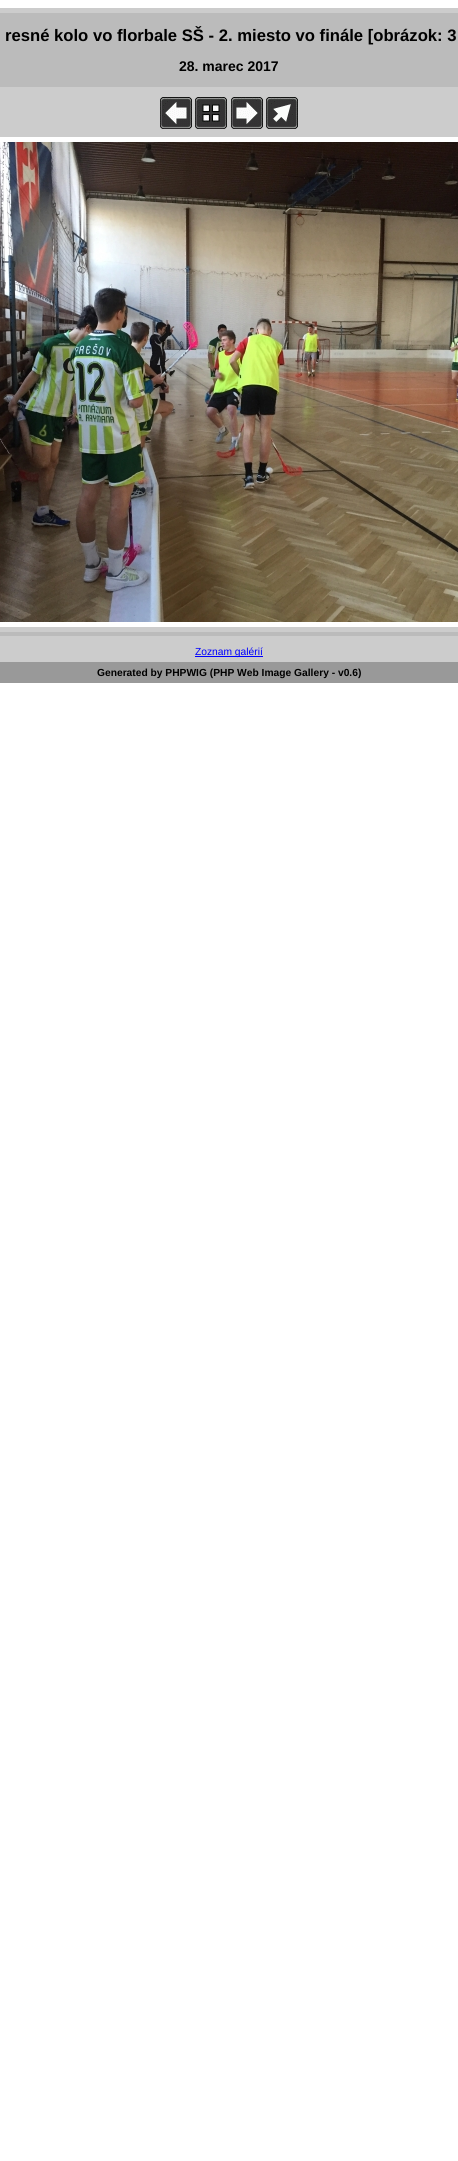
#include <cairo.h>
#include <math.h>
#include <stddef.h>

static cairo_t *ctx;

static void use_color(int r, int g, int b) {
    cairo_set_source_rgb(ctx, r / 255.0, g / 255.0, b / 255.0);
}

static void picture(const char *path, double x, double y, double w, double h) {
    cairo_surface_t *image = cairo_image_surface_create_from_png(path);
    cairo_save(ctx);
    cairo_set_source_surface(ctx, image, x, y);
    cairo_rectangle(ctx, x, y, w, h);
    cairo_fill(ctx);
    cairo_restore(ctx);
    cairo_surface_destroy(image);
}

int main(void) {
    cairo_surface_t *surface = cairo_image_surface_create(CAIRO_FORMAT_RGB24, 458, 2161);
    ctx = cairo_create(surface);
    cairo_font_options_t *options = cairo_font_options_create();
    cairo_font_options_set_hint_metrics(options, CAIRO_HINT_METRICS_OFF);
    cairo_font_options_set_hint_style(options, CAIRO_HINT_STYLE_NONE);
    cairo_set_font_options(ctx, options);
    cairo_set_miter_limit(ctx, 4);
    use_color(255, 255, 255);
    cairo_paint(ctx);
    use_color(204, 204, 204);
    cairo_rectangle(ctx, 0, 8, 458, 654);
    cairo_fill(ctx);
    use_color(187, 187, 187);
    cairo_rectangle(ctx, 0, 13, 458, 74);
    cairo_fill(ctx);
    cairo_select_font_face(ctx, "Liberation Sans", CAIRO_FONT_SLANT_NORMAL, CAIRO_FONT_WEIGHT_BOLD);
    cairo_set_font_size(ctx, 16.65);
    use_color(0, 0, 0);
    cairo_move_to(ctx, 5, 41);
    cairo_show_text(ctx, "resné kolo vo florbale SŠ - 2. miesto vo finále [obrázok: 3");
    cairo_set_font_size(ctx, 14);
    cairo_move_to(ctx, 179, 71);
    cairo_show_text(ctx, "28. marec 2017");
    picture("img1.png", 160, 97, 32, 32);
    picture("img2.png", 195, 97, 32, 32);
    picture("img3.png", 231, 97, 32, 32);
    picture("img4.png", 266, 97, 32, 32);
    use_color(255, 255, 255);
    cairo_rectangle(ctx, 0, 137, 458, 490);
    cairo_fill(ctx);
    picture("img5.png", 0, 142, 458, 480);
    use_color(187, 187, 187);
    cairo_rectangle(ctx, 0, 632, 458, 4);
    cairo_fill(ctx);
    use_color(0, 0, 255);
    cairo_rectangle(ctx, 195, 656, 68, 1);
    cairo_fill(ctx);
    cairo_select_font_face(ctx, "Liberation Sans", CAIRO_FONT_SLANT_NORMAL, CAIRO_FONT_WEIGHT_NORMAL);
    cairo_set_font_size(ctx, 10.25);
    cairo_move_to(ctx, 195, 655);
    cairo_show_text(ctx, "Zoznam galérií");
    use_color(153, 153, 153);
    cairo_rectangle(ctx, 0, 662, 458, 21);
    cairo_fill(ctx);
    cairo_select_font_face(ctx, "Liberation Sans", CAIRO_FONT_SLANT_NORMAL, CAIRO_FONT_WEIGHT_BOLD);
    use_color(0, 0, 0);
    cairo_move_to(ctx, 97, 676);
    cairo_show_text(ctx, "Generated by PHPWIG (PHP Web Image Gallery - v0.6)");
    cairo_surface_write_to_png(surface, "result.png");
    cairo_font_options_destroy(options);
    cairo_destroy(ctx);
    cairo_surface_destroy(surface);
    return 0;
}
